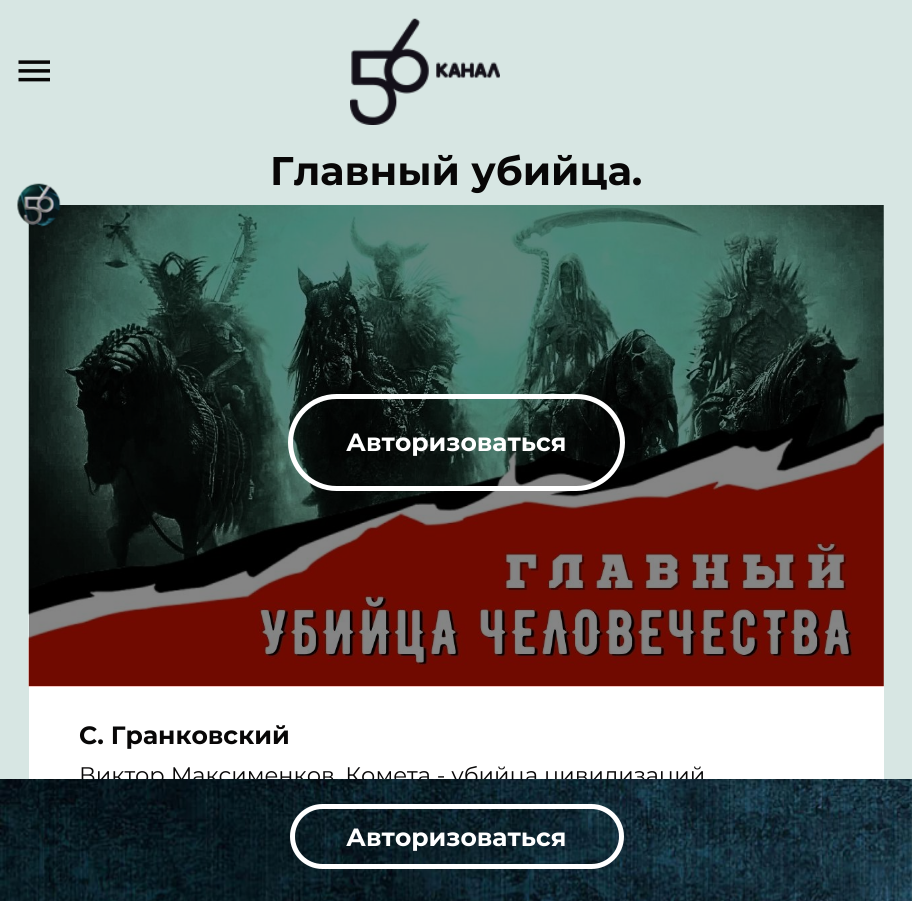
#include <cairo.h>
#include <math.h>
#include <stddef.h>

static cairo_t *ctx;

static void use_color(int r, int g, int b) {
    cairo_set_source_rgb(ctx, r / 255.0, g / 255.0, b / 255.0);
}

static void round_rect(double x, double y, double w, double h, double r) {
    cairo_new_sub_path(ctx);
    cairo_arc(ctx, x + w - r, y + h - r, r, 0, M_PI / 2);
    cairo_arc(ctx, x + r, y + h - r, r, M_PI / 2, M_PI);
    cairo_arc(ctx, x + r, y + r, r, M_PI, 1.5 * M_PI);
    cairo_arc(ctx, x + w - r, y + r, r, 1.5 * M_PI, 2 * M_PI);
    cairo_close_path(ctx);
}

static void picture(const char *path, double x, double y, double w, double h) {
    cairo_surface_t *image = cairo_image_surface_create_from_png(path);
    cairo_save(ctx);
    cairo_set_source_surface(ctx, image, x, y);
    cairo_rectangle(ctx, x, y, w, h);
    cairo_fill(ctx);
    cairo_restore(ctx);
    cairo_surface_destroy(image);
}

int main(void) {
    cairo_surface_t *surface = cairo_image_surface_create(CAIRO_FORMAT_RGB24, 912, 901);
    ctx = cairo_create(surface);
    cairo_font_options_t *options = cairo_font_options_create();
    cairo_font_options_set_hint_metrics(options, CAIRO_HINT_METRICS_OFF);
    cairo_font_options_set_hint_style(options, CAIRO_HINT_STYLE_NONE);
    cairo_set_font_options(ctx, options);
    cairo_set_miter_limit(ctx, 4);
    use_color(215, 230, 227);
    cairo_paint(ctx);
    picture("img1.png", 18, 60, 32, 22);
    picture("img2.png", 350, 18, 150, 107);
    use_color(255, 255, 255);
    cairo_rectangle(ctx, 29, 686, 855, 93);
    cairo_fill(ctx);
    picture("img4.png", 28, 205, 856, 482);
    picture("img3.png", 17, 183, 44, 44);
    cairo_select_font_face(ctx, "Montserrat", CAIRO_FONT_SLANT_NORMAL, CAIRO_FONT_WEIGHT_BOLD);
    cairo_set_font_size(ctx, 40);
    use_color(8, 7, 7);
    cairo_move_to(ctx, 270, 185);
    cairo_show_text(ctx, "Главный убийца.");
    round_rect(290.5, 396.5, 332, 92, 46);
    use_color(255, 255, 255);
    cairo_set_line_width(ctx, 5);
    cairo_stroke(ctx);
    cairo_set_font_size(ctx, 25);
    cairo_move_to(ctx, 346, 451);
    cairo_show_text(ctx, "Авторизоваться");
    use_color(8, 7, 7);
    cairo_move_to(ctx, 79, 744);
    cairo_show_text(ctx, "С. Гранковский");
    cairo_select_font_face(ctx, "Montserrat", CAIRO_FONT_SLANT_NORMAL, CAIRO_FONT_WEIGHT_NORMAL);
    cairo_set_font_size(ctx, 22.5);
    cairo_move_to(ctx, 79, 783);
    cairo_show_text(ctx, "Виктор Максименков. Комета - убийца цивилизаций");
    picture("img5.png", 0, 779, 912, 122);
    round_rect(292.5, 806.5, 329, 60, 30);
    use_color(255, 255, 255);
    cairo_stroke(ctx);
    cairo_select_font_face(ctx, "Montserrat", CAIRO_FONT_SLANT_NORMAL, CAIRO_FONT_WEIGHT_BOLD);
    cairo_set_font_size(ctx, 25);
    cairo_move_to(ctx, 346, 846);
    cairo_show_text(ctx, "Авторизоваться");
    cairo_surface_write_to_png(surface, "result.png");
    cairo_font_options_destroy(options);
    cairo_destroy(ctx);
    cairo_surface_destroy(surface);
    return 0;
}
